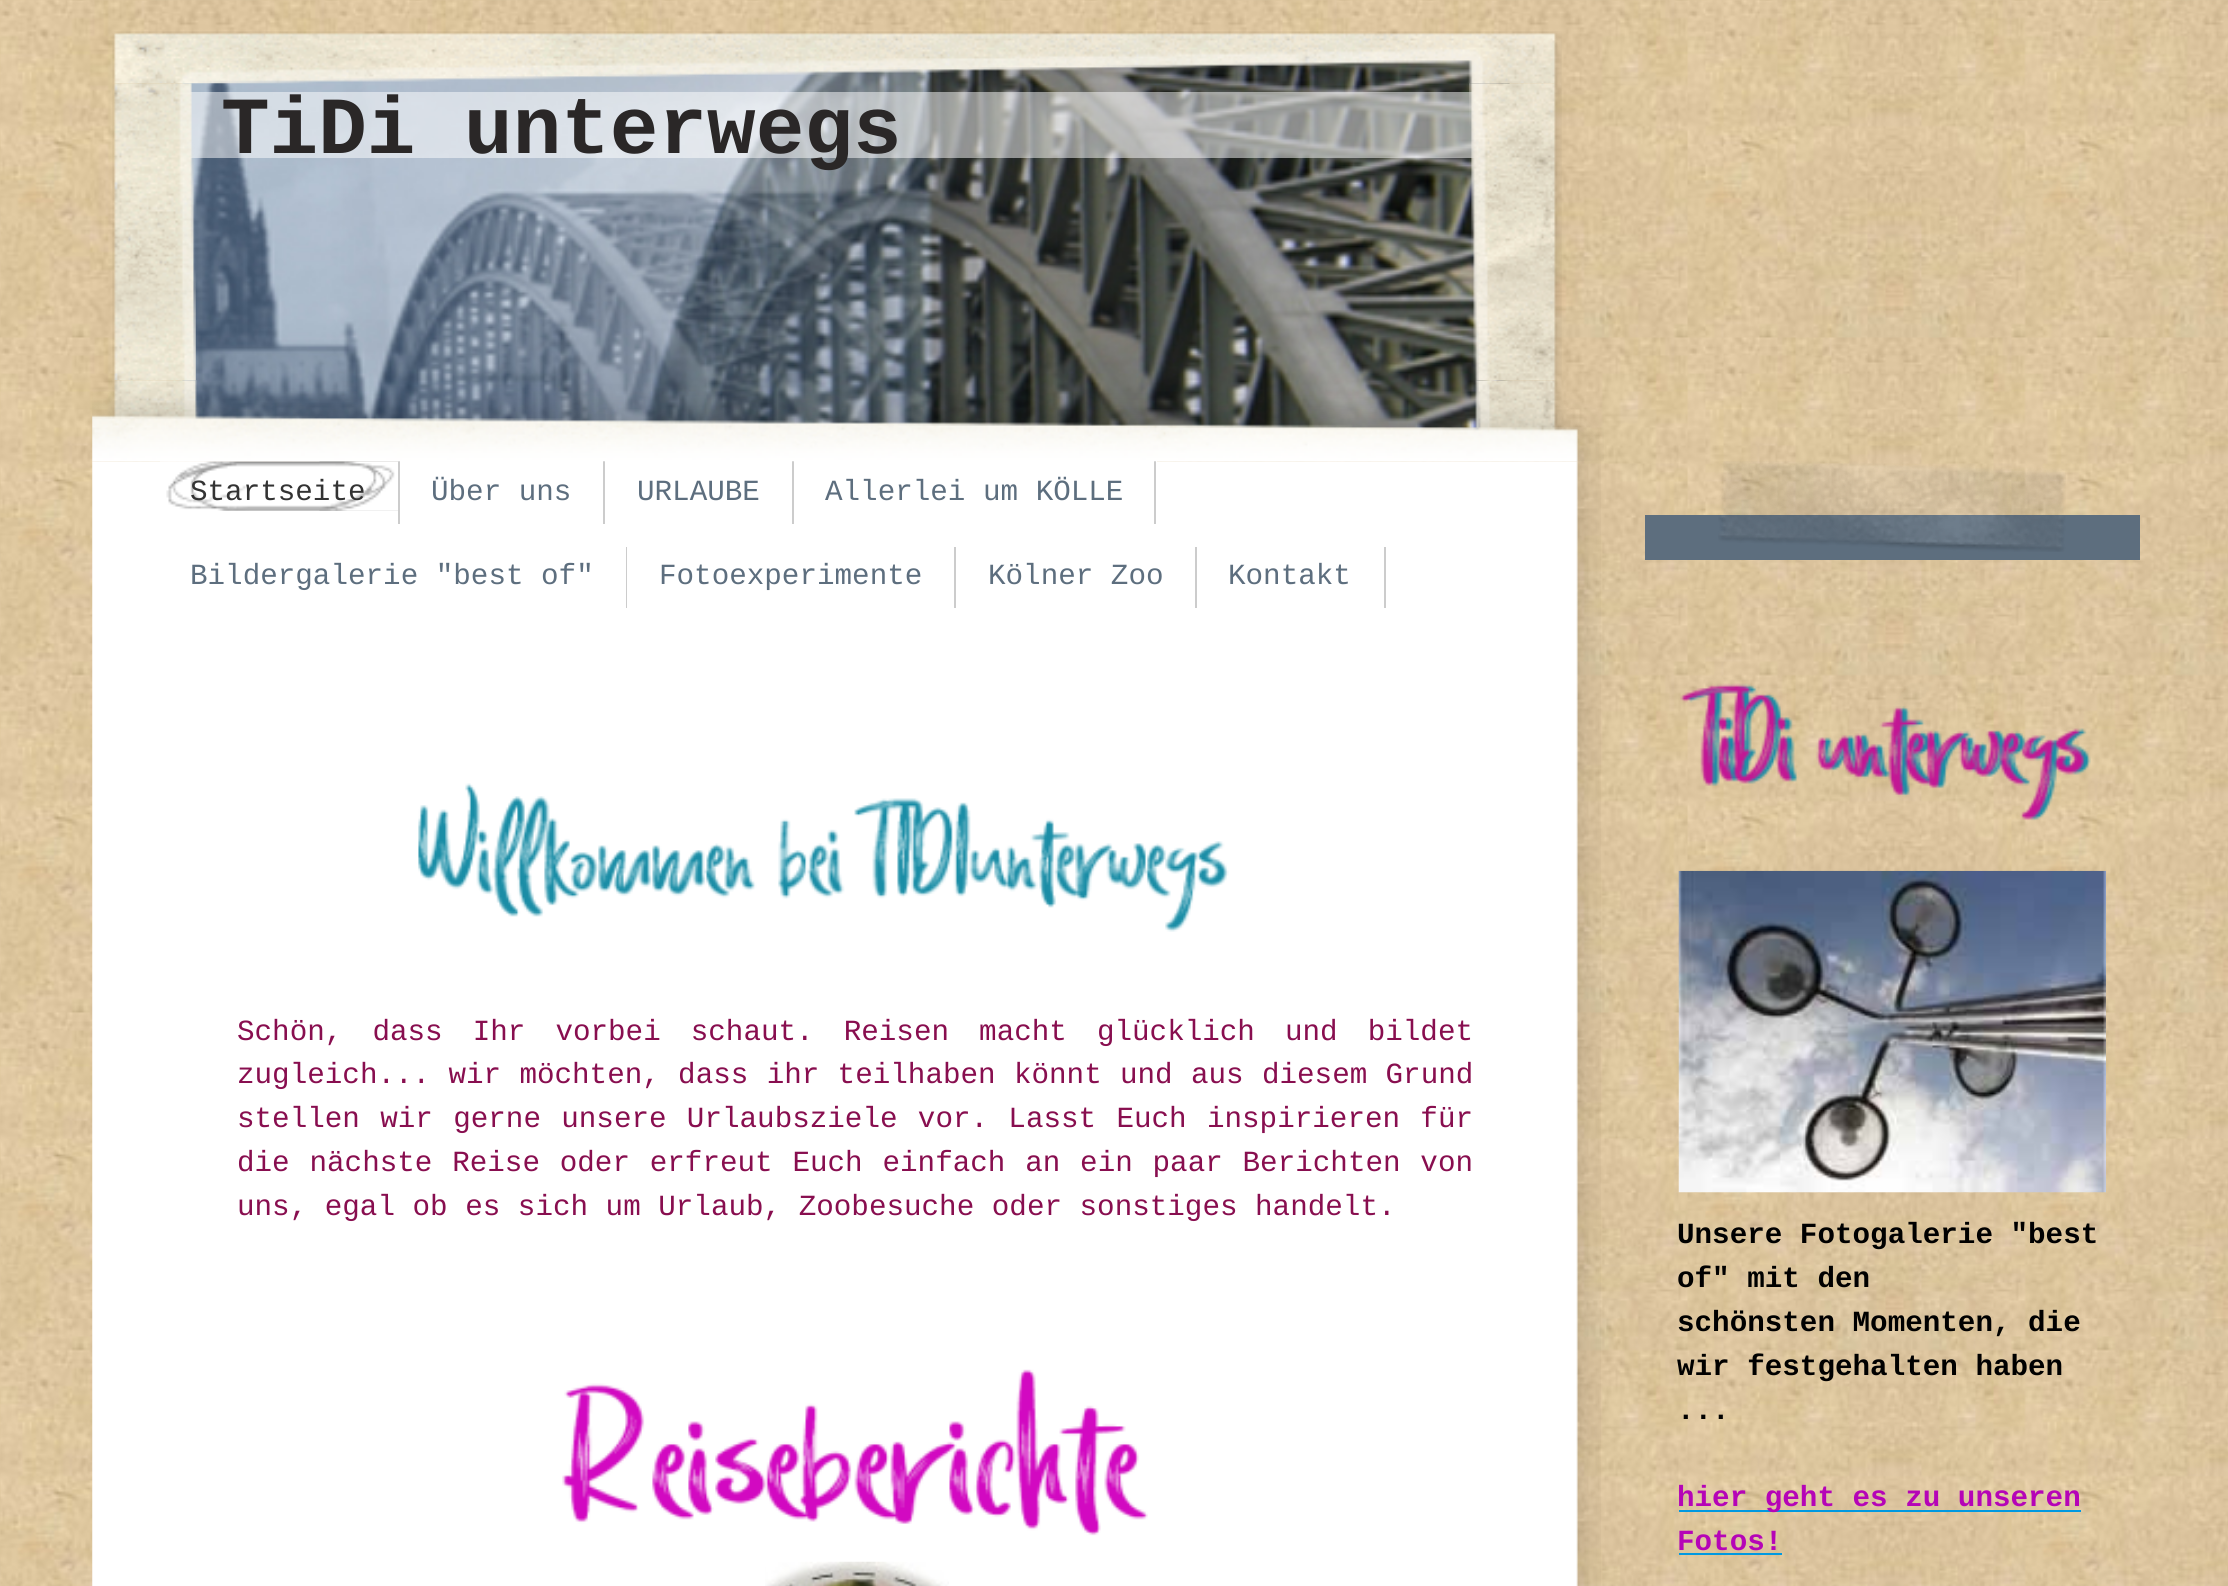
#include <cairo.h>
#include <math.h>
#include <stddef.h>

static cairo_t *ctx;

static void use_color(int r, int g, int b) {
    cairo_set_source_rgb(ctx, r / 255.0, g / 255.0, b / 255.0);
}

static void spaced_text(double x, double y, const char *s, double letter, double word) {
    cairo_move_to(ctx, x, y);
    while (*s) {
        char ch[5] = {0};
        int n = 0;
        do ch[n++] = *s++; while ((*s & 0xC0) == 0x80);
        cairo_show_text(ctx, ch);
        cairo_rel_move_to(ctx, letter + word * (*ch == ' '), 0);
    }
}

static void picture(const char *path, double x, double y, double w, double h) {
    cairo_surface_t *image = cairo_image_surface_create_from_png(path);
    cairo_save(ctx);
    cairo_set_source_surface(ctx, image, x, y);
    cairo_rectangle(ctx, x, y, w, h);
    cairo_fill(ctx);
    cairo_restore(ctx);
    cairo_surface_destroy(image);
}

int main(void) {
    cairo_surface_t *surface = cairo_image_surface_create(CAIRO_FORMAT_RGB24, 2228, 1586);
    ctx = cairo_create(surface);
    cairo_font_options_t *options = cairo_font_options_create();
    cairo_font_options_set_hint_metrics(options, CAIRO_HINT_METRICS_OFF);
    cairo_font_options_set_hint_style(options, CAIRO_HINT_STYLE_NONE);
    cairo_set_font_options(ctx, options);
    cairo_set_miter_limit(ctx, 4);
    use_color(255, 255, 255);
    cairo_paint(ctx);
    picture("img1.png", 0, 0, 2228, 1586);
    picture("img4.png", 182, 60, 1328, 371);
    picture("img2.png", 112, 31, 1450, 53);
    cairo_set_source_rgba(ctx, 1, 1, 1, 0.5);
    cairo_rectangle(ctx, 190, 92, 1286, 66);
    cairo_fill(ctx);
    picture("img3.png", 112, 83, 84, 298);
    cairo_select_font_face(ctx, "Liberation Mono", CAIRO_FONT_SLANT_NORMAL, CAIRO_FONT_WEIGHT_BOLD);
    cairo_set_font_size(ctx, 81);
    use_color(42, 39, 39);
    cairo_move_to(ctx, 221, 153);
    cairo_show_text(ctx, "TiDi unterwegs");
    picture("img5.png", 1469, 83, 93, 298);
    picture("img7.png", 92, 461, 1509, 1125);
    picture("img8.png", 160, 461, 238, 50);
    picture("img9.png", 319, 461, 79, 50);
    use_color(204, 204, 204);
    cairo_rectangle(ctx, 398, 461, 2, 63);
    cairo_fill(ctx);
    use_color(255, 255, 255);
    cairo_rectangle(ctx, 400, 461, 757, 1);
    cairo_fill(ctx);
    use_color(204, 204, 204);
    cairo_rectangle(ctx, 603, 461, 2, 63);
    cairo_fill(ctx);
    cairo_rectangle(ctx, 792, 461, 2, 63);
    cairo_fill(ctx);
    cairo_rectangle(ctx, 1154, 461, 2, 63);
    cairo_fill(ctx);
    picture("img6.png", 92, 380, 1512, 82);
    cairo_select_font_face(ctx, "Liberation Mono", CAIRO_FONT_SLANT_NORMAL, CAIRO_FONT_WEIGHT_NORMAL);
    cairo_set_font_size(ctx, 29.25);
    use_color(51, 51, 51);
    cairo_move_to(ctx, 190, 500);
    cairo_show_text(ctx, "Startseite");
    use_color(93, 110, 126);
    cairo_move_to(ctx, 431, 500);
    cairo_show_text(ctx, "Über uns");
    cairo_move_to(ctx, 637, 500);
    cairo_show_text(ctx, "URLAUBE");
    cairo_move_to(ctx, 825, 500);
    cairo_show_text(ctx, "Allerlei um KÖLLE");
    use_color(204, 204, 204);
    cairo_rectangle(ctx, 626, 547, 1, 61);
    cairo_fill(ctx);
    use_color(93, 110, 126);
    cairo_move_to(ctx, 190, 584);
    cairo_show_text(ctx, "Bildergalerie \"best of\"");
    use_color(204, 204, 204);
    cairo_rectangle(ctx, 954, 547, 2, 61);
    cairo_fill(ctx);
    use_color(93, 110, 126);
    cairo_move_to(ctx, 659, 584);
    cairo_show_text(ctx, "Fotoexperimente");
    use_color(204, 204, 204);
    cairo_rectangle(ctx, 1195, 547, 2, 61);
    cairo_fill(ctx);
    use_color(93, 110, 126);
    cairo_move_to(ctx, 988, 584);
    cairo_show_text(ctx, "Kölner Zoo");
    use_color(204, 204, 204);
    cairo_rectangle(ctx, 1384, 547, 2, 61);
    cairo_fill(ctx);
    use_color(93, 110, 126);
    cairo_move_to(ctx, 1228, 584);
    cairo_show_text(ctx, "Kontakt");
    picture("img10.png", 418, 783, 811, 149);
    use_color(136, 14, 79);
    spaced_text(237, 1040, "Schön, dass Ihr vorbei schaut. Reisen macht glücklich und bildet", 0, 12.5);
    spaced_text(237, 1083, "zugleich... wir möchten, dass ihr teilhaben könnt und aus diesem Grund", 0, 0.75);
    spaced_text(237, 1127, "stellen wir gerne unsere Urlaubsziele vor. Lasst Euch inspirieren für", 0, 2.75);
    spaced_text(237, 1171, "die nächste Reise oder erfreut Euch einfach an ein paar Berichten von", 0, 2.25);
    cairo_move_to(ctx, 237, 1215);
    cairo_show_text(ctx, "uns, egal ob es sich um Urlaub, Zoobesuche oder sonstiges handelt.");
    picture("img11.png", 562, 1369, 586, 167);
    picture("img12.png", 765, 1561, 184, 25);
    use_color(93, 110, 126);
    cairo_rectangle(ctx, 1645, 515, 495, 45);
    cairo_fill(ctx);
    picture("img13.png", 1718, 461, 348, 91);
    picture("img14.png", 1680, 683, 411, 138);
    picture("img15.png", 1678, 870, 428, 323);
    cairo_select_font_face(ctx, "Liberation Mono", CAIRO_FONT_SLANT_NORMAL, CAIRO_FONT_WEIGHT_BOLD);
    use_color(0, 0, 0);
    cairo_move_to(ctx, 1677, 1243);
    cairo_show_text(ctx, "Unsere Fotogalerie \"best");
    cairo_move_to(ctx, 1677, 1287);
    cairo_show_text(ctx, "of\" mit den");
    cairo_move_to(ctx, 1677, 1331);
    cairo_show_text(ctx, "schönsten Momenten, die");
    cairo_move_to(ctx, 1677, 1375);
    cairo_show_text(ctx, "wir festgehalten haben");
    cairo_move_to(ctx, 1677, 1419);
    cairo_show_text(ctx, "...");
    use_color(0, 153, 225);
    cairo_rectangle(ctx, 1679, 1510, 402, 2);
    cairo_fill(ctx);
    use_color(181, 4, 183);
    cairo_move_to(ctx, 1677, 1506);
    cairo_show_text(ctx, "hier geht es zu unseren");
    cairo_move_to(ctx, 1677, 1550);
    cairo_show_text(ctx, "Fotos!");
    use_color(0, 153, 225);
    cairo_rectangle(ctx, 1679, 1553, 103, 2);
    cairo_fill(ctx);
    cairo_surface_write_to_png(surface, "result.png");
    cairo_font_options_destroy(options);
    cairo_destroy(ctx);
    cairo_surface_destroy(surface);
    return 0;
}
